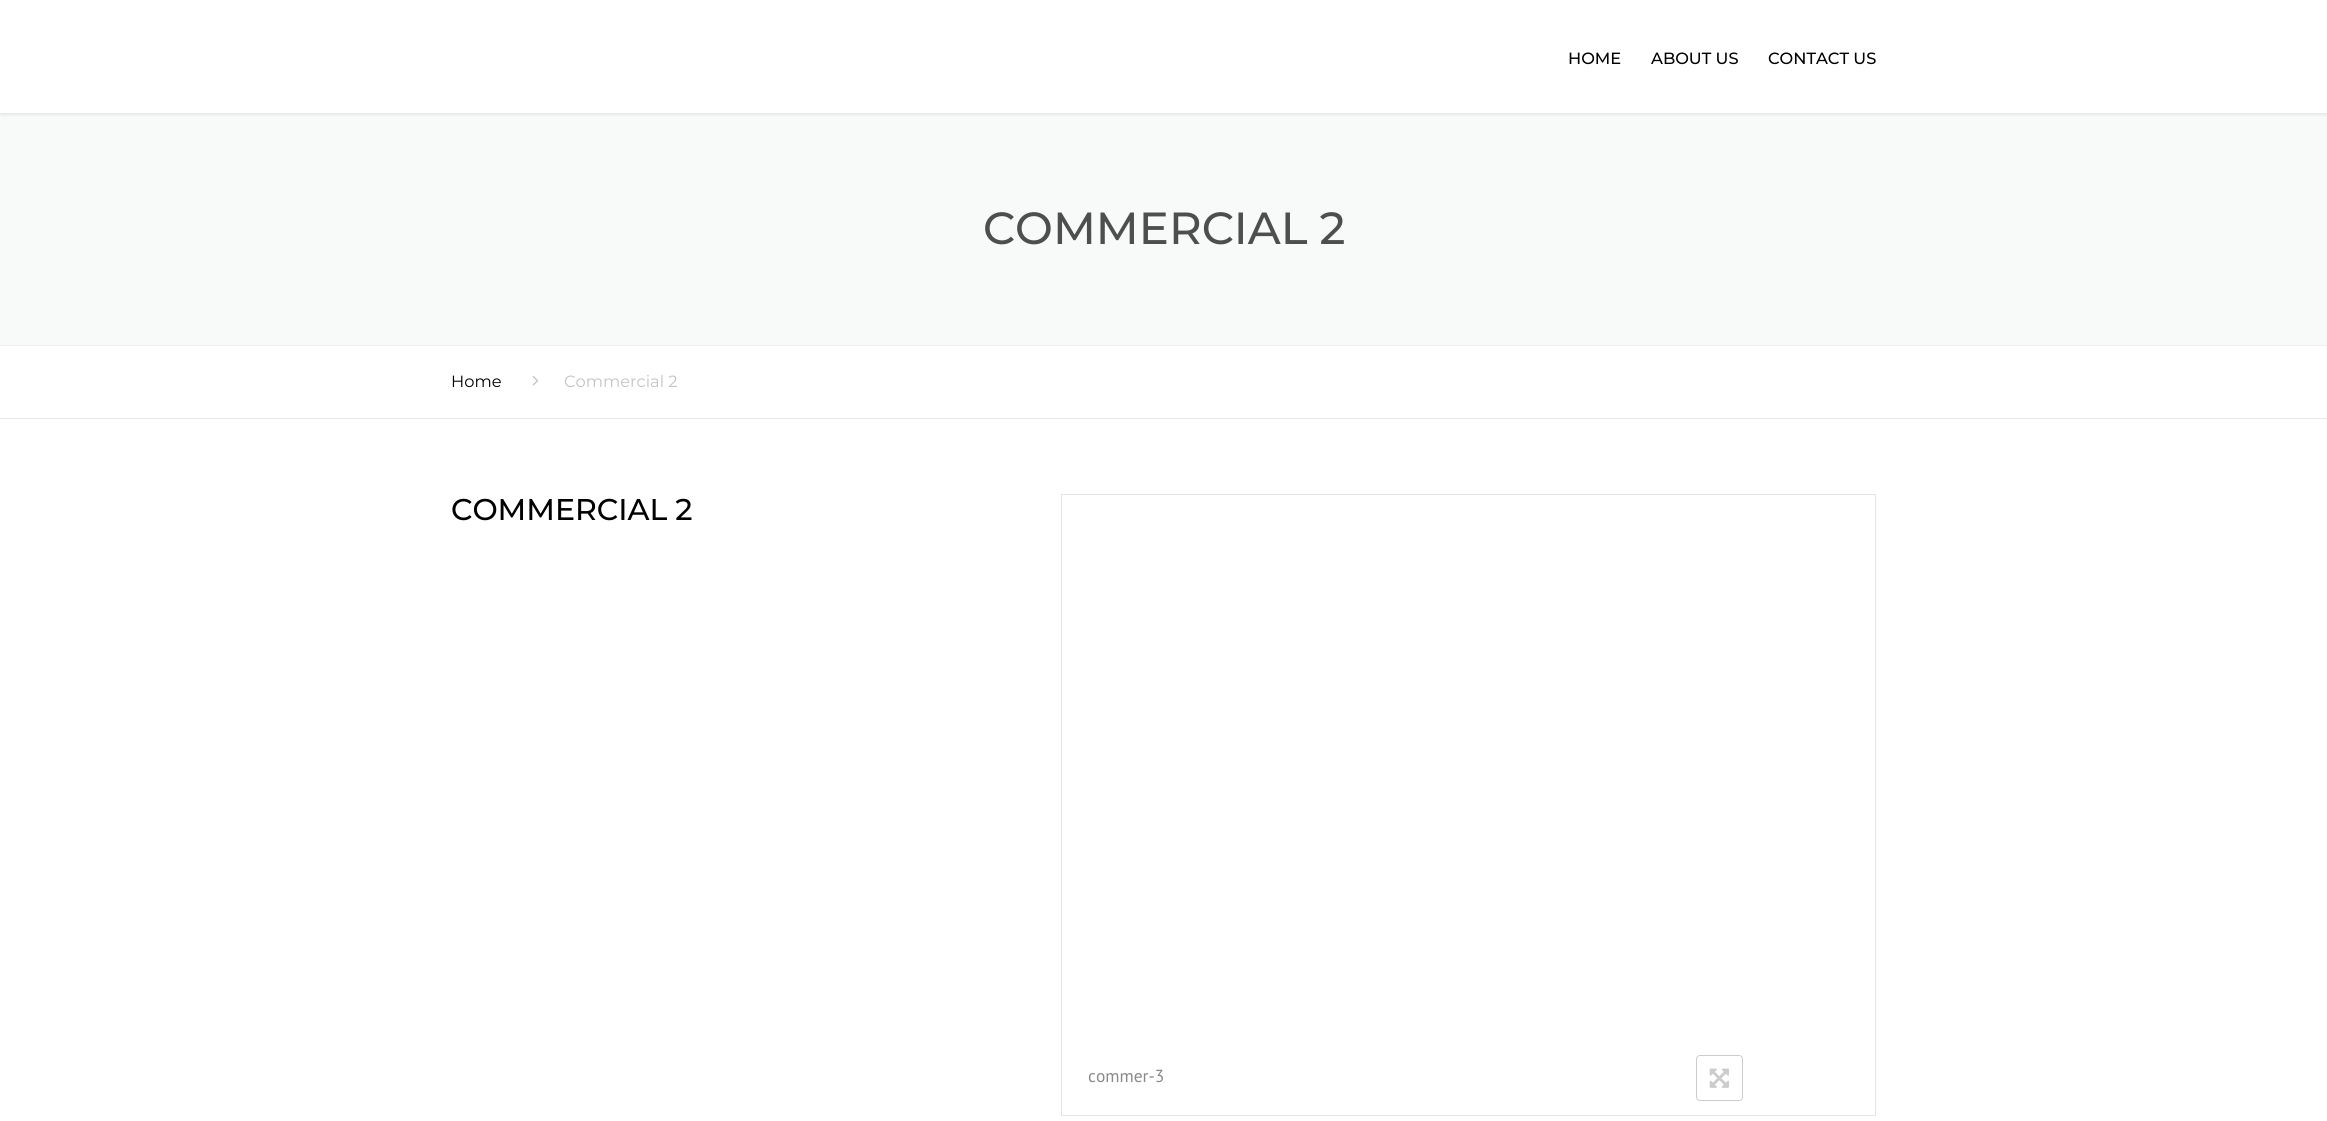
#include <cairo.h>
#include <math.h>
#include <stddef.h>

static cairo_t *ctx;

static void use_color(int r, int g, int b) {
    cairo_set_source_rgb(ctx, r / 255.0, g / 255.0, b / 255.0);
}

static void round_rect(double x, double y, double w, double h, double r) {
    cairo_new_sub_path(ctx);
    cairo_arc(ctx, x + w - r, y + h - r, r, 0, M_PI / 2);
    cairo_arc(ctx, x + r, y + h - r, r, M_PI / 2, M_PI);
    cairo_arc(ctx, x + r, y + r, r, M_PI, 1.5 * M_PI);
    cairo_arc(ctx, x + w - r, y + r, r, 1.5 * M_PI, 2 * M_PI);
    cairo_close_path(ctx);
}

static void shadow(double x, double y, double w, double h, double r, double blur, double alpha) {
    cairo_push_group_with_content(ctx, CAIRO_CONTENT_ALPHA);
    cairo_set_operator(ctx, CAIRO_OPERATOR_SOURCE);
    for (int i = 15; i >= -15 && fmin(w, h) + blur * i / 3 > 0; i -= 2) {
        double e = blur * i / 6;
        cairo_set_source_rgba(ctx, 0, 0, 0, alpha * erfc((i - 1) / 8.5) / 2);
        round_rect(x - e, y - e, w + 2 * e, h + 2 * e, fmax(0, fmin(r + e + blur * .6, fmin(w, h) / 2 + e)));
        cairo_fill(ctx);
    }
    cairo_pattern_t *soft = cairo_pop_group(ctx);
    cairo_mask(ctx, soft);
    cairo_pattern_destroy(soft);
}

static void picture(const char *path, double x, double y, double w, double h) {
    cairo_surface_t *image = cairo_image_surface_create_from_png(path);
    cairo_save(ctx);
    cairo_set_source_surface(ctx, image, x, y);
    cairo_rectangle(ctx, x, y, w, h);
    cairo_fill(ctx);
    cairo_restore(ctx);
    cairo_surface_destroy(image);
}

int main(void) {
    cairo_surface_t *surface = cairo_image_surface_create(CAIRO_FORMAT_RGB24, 2327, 1121);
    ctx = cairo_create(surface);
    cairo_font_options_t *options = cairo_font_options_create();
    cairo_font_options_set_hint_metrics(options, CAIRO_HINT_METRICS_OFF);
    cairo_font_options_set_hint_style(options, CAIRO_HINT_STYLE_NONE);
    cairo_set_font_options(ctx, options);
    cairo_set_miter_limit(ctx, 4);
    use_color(255, 255, 255);
    cairo_paint(ctx);
    use_color(248, 249, 249);
    cairo_rectangle(ctx, 0, 113, 2327, 232);
    cairo_fill(ctx);
    use_color(0, 0, 0);
    shadow(1, 0, 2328, 113, 0, 2.5, 0.15);
    use_color(255, 255, 255);
    cairo_rectangle(ctx, 0, 0, 2327, 113);
    cairo_fill(ctx);
    cairo_select_font_face(ctx, "Montserrat Medium", CAIRO_FONT_SLANT_NORMAL, CAIRO_FONT_WEIGHT_NORMAL);
    cairo_set_font_size(ctx, 16.25);
    use_color(0, 0, 0);
    cairo_move_to(ctx, 1568, 64);
    cairo_show_text(ctx, "HOME");
    cairo_move_to(ctx, 1651, 64);
    cairo_show_text(ctx, "ABOUT US");
    cairo_move_to(ctx, 1768, 64);
    cairo_show_text(ctx, "CONTACT US");
    use_color(238, 238, 238);
    cairo_rectangle(ctx, 0, 345, 2327, 1);
    cairo_fill(ctx);
    cairo_set_font_size(ctx, 45);
    use_color(78, 78, 78);
    cairo_move_to(ctx, 983, 244);
    cairo_show_text(ctx, "COMMERCIAL 2");
    use_color(231, 231, 231);
    cairo_rectangle(ctx, 0, 418, 2327, 1);
    cairo_fill(ctx);
    cairo_select_font_face(ctx, "Montserrat", CAIRO_FONT_SLANT_NORMAL, CAIRO_FONT_WEIGHT_NORMAL);
    cairo_set_font_size(ctx, 16.25);
    use_color(0, 0, 0);
    cairo_move_to(ctx, 451, 387);
    cairo_show_text(ctx, "Home");
    picture("img1.png", 532, 376, 7, 10);
    use_color(195, 195, 195);
    cairo_move_to(ctx, 564, 387);
    cairo_show_text(ctx, "Commercial 2");
    cairo_select_font_face(ctx, "Montserrat Medium", CAIRO_FONT_SLANT_NORMAL, CAIRO_FONT_WEIGHT_NORMAL);
    cairo_set_font_size(ctx, 30);
    use_color(0, 0, 0);
    cairo_move_to(ctx, 451, 520);
    cairo_show_text(ctx, "COMMERCIAL 2");
    cairo_rectangle(ctx, 1061.5, 494.5, 814, 621);
    use_color(229, 229, 229);
    cairo_set_line_width(ctx, 1);
    cairo_stroke(ctx);
    cairo_select_font_face(ctx, "PT Sans", CAIRO_FONT_SLANT_NORMAL, CAIRO_FONT_WEIGHT_NORMAL);
    cairo_set_font_size(ctx, 17.5);
    use_color(137, 137, 137);
    cairo_move_to(ctx, 1088, 1082);
    cairo_show_text(ctx, "commer-3");
    round_rect(1696.5, 1055.5, 46, 45, 3.5);
    use_color(204, 204, 204);
    cairo_stroke(ctx);
    picture("img2.png", 1709, 1068, 20, 20);
    cairo_surface_write_to_png(surface, "result.png");
    cairo_font_options_destroy(options);
    cairo_destroy(ctx);
    cairo_surface_destroy(surface);
    return 0;
}
